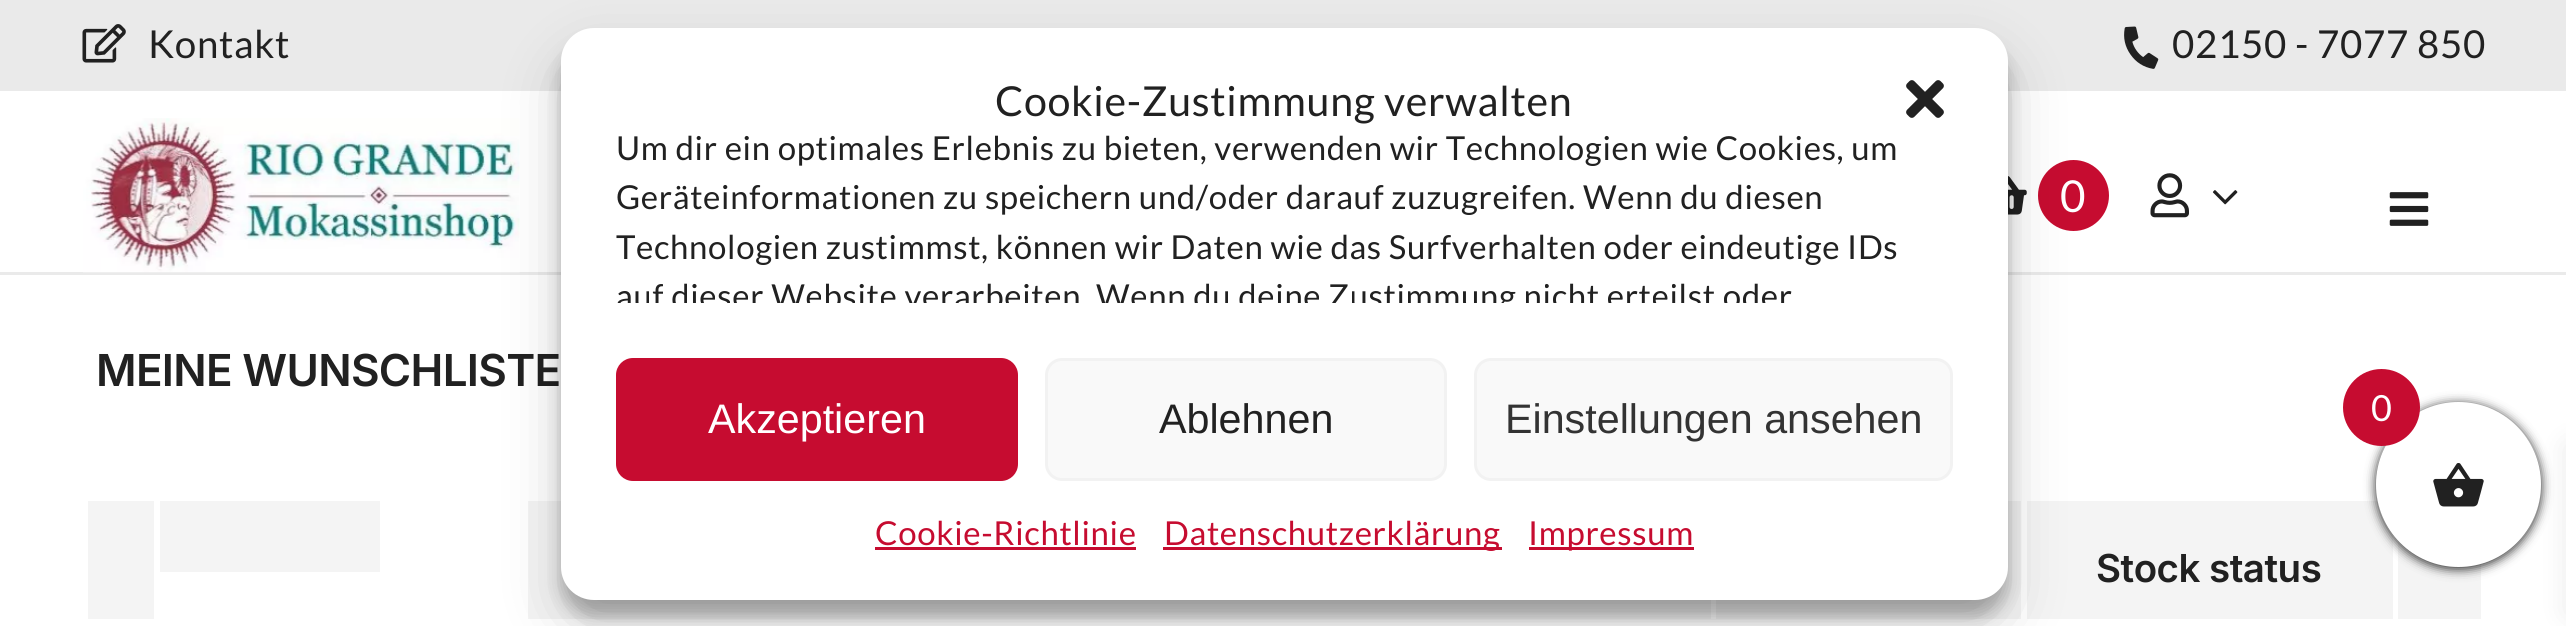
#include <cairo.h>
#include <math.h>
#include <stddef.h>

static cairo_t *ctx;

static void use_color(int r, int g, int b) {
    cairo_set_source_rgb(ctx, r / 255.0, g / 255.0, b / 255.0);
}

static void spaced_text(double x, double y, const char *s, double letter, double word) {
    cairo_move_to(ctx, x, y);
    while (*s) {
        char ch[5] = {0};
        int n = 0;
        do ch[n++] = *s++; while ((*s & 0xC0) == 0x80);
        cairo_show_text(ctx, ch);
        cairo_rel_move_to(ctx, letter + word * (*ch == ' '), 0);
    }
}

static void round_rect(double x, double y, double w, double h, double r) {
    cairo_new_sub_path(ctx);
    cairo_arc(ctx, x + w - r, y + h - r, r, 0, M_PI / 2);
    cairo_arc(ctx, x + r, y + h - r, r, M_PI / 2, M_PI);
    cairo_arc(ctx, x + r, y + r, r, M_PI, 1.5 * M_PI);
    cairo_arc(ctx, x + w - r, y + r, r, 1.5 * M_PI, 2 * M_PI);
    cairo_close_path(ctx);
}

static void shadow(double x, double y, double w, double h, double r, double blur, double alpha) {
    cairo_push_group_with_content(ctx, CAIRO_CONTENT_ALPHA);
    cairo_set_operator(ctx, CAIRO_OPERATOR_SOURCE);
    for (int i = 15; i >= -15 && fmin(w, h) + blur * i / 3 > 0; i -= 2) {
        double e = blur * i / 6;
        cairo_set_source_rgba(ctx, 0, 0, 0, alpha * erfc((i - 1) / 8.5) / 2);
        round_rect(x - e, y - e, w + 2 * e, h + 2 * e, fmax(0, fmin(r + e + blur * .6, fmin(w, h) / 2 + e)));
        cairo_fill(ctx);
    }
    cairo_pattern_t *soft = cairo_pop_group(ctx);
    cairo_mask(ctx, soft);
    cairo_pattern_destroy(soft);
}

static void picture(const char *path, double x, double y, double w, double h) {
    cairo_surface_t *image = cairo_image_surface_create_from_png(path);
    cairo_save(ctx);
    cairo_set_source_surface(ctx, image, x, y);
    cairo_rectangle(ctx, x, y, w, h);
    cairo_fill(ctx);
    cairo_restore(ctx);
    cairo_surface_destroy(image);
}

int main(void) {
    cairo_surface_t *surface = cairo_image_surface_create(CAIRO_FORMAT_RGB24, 2566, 626);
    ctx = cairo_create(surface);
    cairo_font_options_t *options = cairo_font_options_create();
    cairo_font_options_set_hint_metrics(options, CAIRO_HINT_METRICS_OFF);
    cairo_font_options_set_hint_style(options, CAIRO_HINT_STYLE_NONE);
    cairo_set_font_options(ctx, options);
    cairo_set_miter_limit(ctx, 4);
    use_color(255, 255, 255);
    cairo_paint(ctx);
    use_color(234, 234, 234);
    cairo_rectangle(ctx, 0, 0, 2566, 91);
    cairo_fill(ctx);
    picture("img1.png", 82, 24, 44, 39);
    cairo_select_font_face(ctx, "Lato", CAIRO_FONT_SLANT_NORMAL, CAIRO_FONT_WEIGHT_NORMAL);
    cairo_set_font_size(ctx, 38.5);
    use_color(33, 33, 33);
    spaced_text(148, 58, "Kontakt", 0.65, 0);
    picture("img2.png", 2124, 26, 35, 43);
    spaced_text(2172, 58, "02150 - 7077 850", 0.65, 0);
    use_color(234, 234, 234);
    cairo_rectangle(ctx, 0, 272, 2566, 3);
    cairo_fill(ctx);
    picture("img3.png", 83, 118, 437, 155);
    picture("img4.png", 2008, 176, 19, 39);
    use_color(198, 12, 48);
    cairo_arc(ctx, 2073.5, 195.5, 35.5, 0, 2 * M_PI);
    cairo_fill(ctx);
    cairo_set_font_size(ctx, 44);
    use_color(255, 255, 255);
    spaced_text(2060, 212, "0", 0.65, 0);
    picture("img5.png", 2150, 173, 39, 45);
    picture("img6.png", 2212, 190, 26, 15);
    picture("img7.png", 2389, 192, 40, 34);
    cairo_select_font_face(ctx, "Inter SemiBold", CAIRO_FONT_SLANT_NORMAL, CAIRO_FONT_WEIGHT_NORMAL);
    use_color(33, 33, 33);
    spaced_text(96, 386, "MEINE WUNSCHLISTE", -0.7, 0);
    use_color(244, 244, 244);
    cairo_rectangle(ctx, 88, 501, 66, 118);
    cairo_fill(ctx);
    cairo_rectangle(ctx, 160, 501, 220, 71);
    cairo_fill(ctx);
    cairo_rectangle(ctx, 528, 501, 1183, 118);
    cairo_fill(ctx);
    cairo_rectangle(ctx, 1716, 501, 305, 118);
    cairo_fill(ctx);
    cairo_rectangle(ctx, 2027, 501, 366, 118);
    cairo_fill(ctx);
    cairo_set_font_size(ctx, 38.5);
    use_color(33, 33, 33);
    spaced_text(2096, 582, "Stock status", -0.5, 0);
    use_color(244, 244, 244);
    cairo_rectangle(ctx, 2398, 540, 83, 79);
    cairo_fill(ctx);
    use_color(0, 0, 0);
    shadow(561, 44, 1447, 572, 33, 8, 0.23);
    shadow(561, 55, 1447, 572, 33, 27.5, 0.19);
    use_color(255, 255, 255);
    round_rect(561, 28, 1447, 572, 33);
    cairo_fill(ctx);
    cairo_select_font_face(ctx, "Lato", CAIRO_FONT_SLANT_NORMAL, CAIRO_FONT_WEIGHT_NORMAL);
    cairo_set_font_size(ctx, 41.25);
    use_color(33, 33, 33);
    spaced_text(995, 116, "Cookie-Zustimmung verwalten", 0.65, 0);
    picture("img8.png", 1906, 80, 38, 38);
    cairo_set_font_size(ctx, 33);
    spaced_text(616, 160, "Um dir ein optimales Erlebnis zu bieten, verwenden wir Technologien wie Cookies, um", 0.65, 0);
    spaced_text(616, 209, "Geräteinformationen zu speichern und/oder darauf zuzugreifen. Wenn du diesen", 0.65, 0);
    spaced_text(616, 259, "Technologien zustimmst, können wir Daten wie das Surfverhalten oder eindeutige IDs", 0.65, 0);
    cairo_save(ctx);
    cairo_rectangle(ctx, 616, 124, 1337, 179);
    cairo_clip(ctx);
    spaced_text(616, 308, "auf dieser Website verarbeiten. Wenn du deine Zustimmung nicht erteilst oder", 0.65, 0);
    cairo_restore(ctx);
    use_color(198, 12, 48);
    round_rect(617.5, 359.5, 399, 120, 15.5);
    cairo_fill_preserve(ctx);
    cairo_set_line_width(ctx, 3);
    cairo_stroke(ctx);
    cairo_select_font_face(ctx, "Liberation Sans", CAIRO_FONT_SLANT_NORMAL, CAIRO_FONT_WEIGHT_NORMAL);
    cairo_set_font_size(ctx, 41.25);
    use_color(255, 255, 255);
    cairo_move_to(ctx, 708, 433);
    cairo_show_text(ctx, "Akzeptieren");
    use_color(249, 249, 249);
    round_rect(1046.5, 359.5, 399, 120, 15.5);
    cairo_fill_preserve(ctx);
    use_color(242, 242, 242);
    cairo_stroke(ctx);
    use_color(33, 33, 33);
    cairo_move_to(ctx, 1159, 433);
    cairo_show_text(ctx, "Ablehnen");
    use_color(249, 249, 249);
    round_rect(1475.5, 359.5, 476, 120, 15.5);
    cairo_fill_preserve(ctx);
    use_color(242, 242, 242);
    cairo_stroke(ctx);
    use_color(51, 51, 51);
    cairo_move_to(ctx, 1505, 433);
    cairo_show_text(ctx, "Einstellungen ansehen");
    cairo_select_font_face(ctx, "Lato", CAIRO_FONT_SLANT_NORMAL, CAIRO_FONT_WEIGHT_NORMAL);
    cairo_set_font_size(ctx, 33);
    use_color(198, 12, 48);
    spaced_text(875, 545, "Cookie-Richtlinie", 0.65, 0);
    cairo_rectangle(ctx, 875, 547, 261, 3);
    cairo_fill(ctx);
    cairo_rectangle(ctx, 1163, 547, 339, 3);
    cairo_fill(ctx);
    spaced_text(1164, 545, "Datenschutzerklärung", 0.65, 0);
    cairo_rectangle(ctx, 1529, 547, 165, 3);
    cairo_fill(ctx);
    spaced_text(1528, 545, "Impressum", 0.65, 0);
    use_color(33, 33, 33);
    shadow(2376, 404, 165, 165, 82.5, 5.5, 1);
    use_color(0, 0, 0);
    shadow(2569, 446, 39, 167, 0, 14, 0.1);
    use_color(255, 255, 255);
    cairo_arc(ctx, 2458.5, 484.5, 82.5, 0, 2 * M_PI);
    cairo_fill(ctx);
    use_color(198, 12, 48);
    cairo_arc(ctx, 2381.5, 407.5, 38.5, 0, 2 * M_PI);
    cairo_fill(ctx);
    cairo_set_font_size(ctx, 36);
    use_color(255, 255, 255);
    spaced_text(2371, 421, "0", 0.65, 0);
    picture("img9.png", 2433, 463, 51, 44);
    cairo_surface_write_to_png(surface, "result.png");
    cairo_font_options_destroy(options);
    cairo_destroy(ctx);
    cairo_surface_destroy(surface);
    return 0;
}
